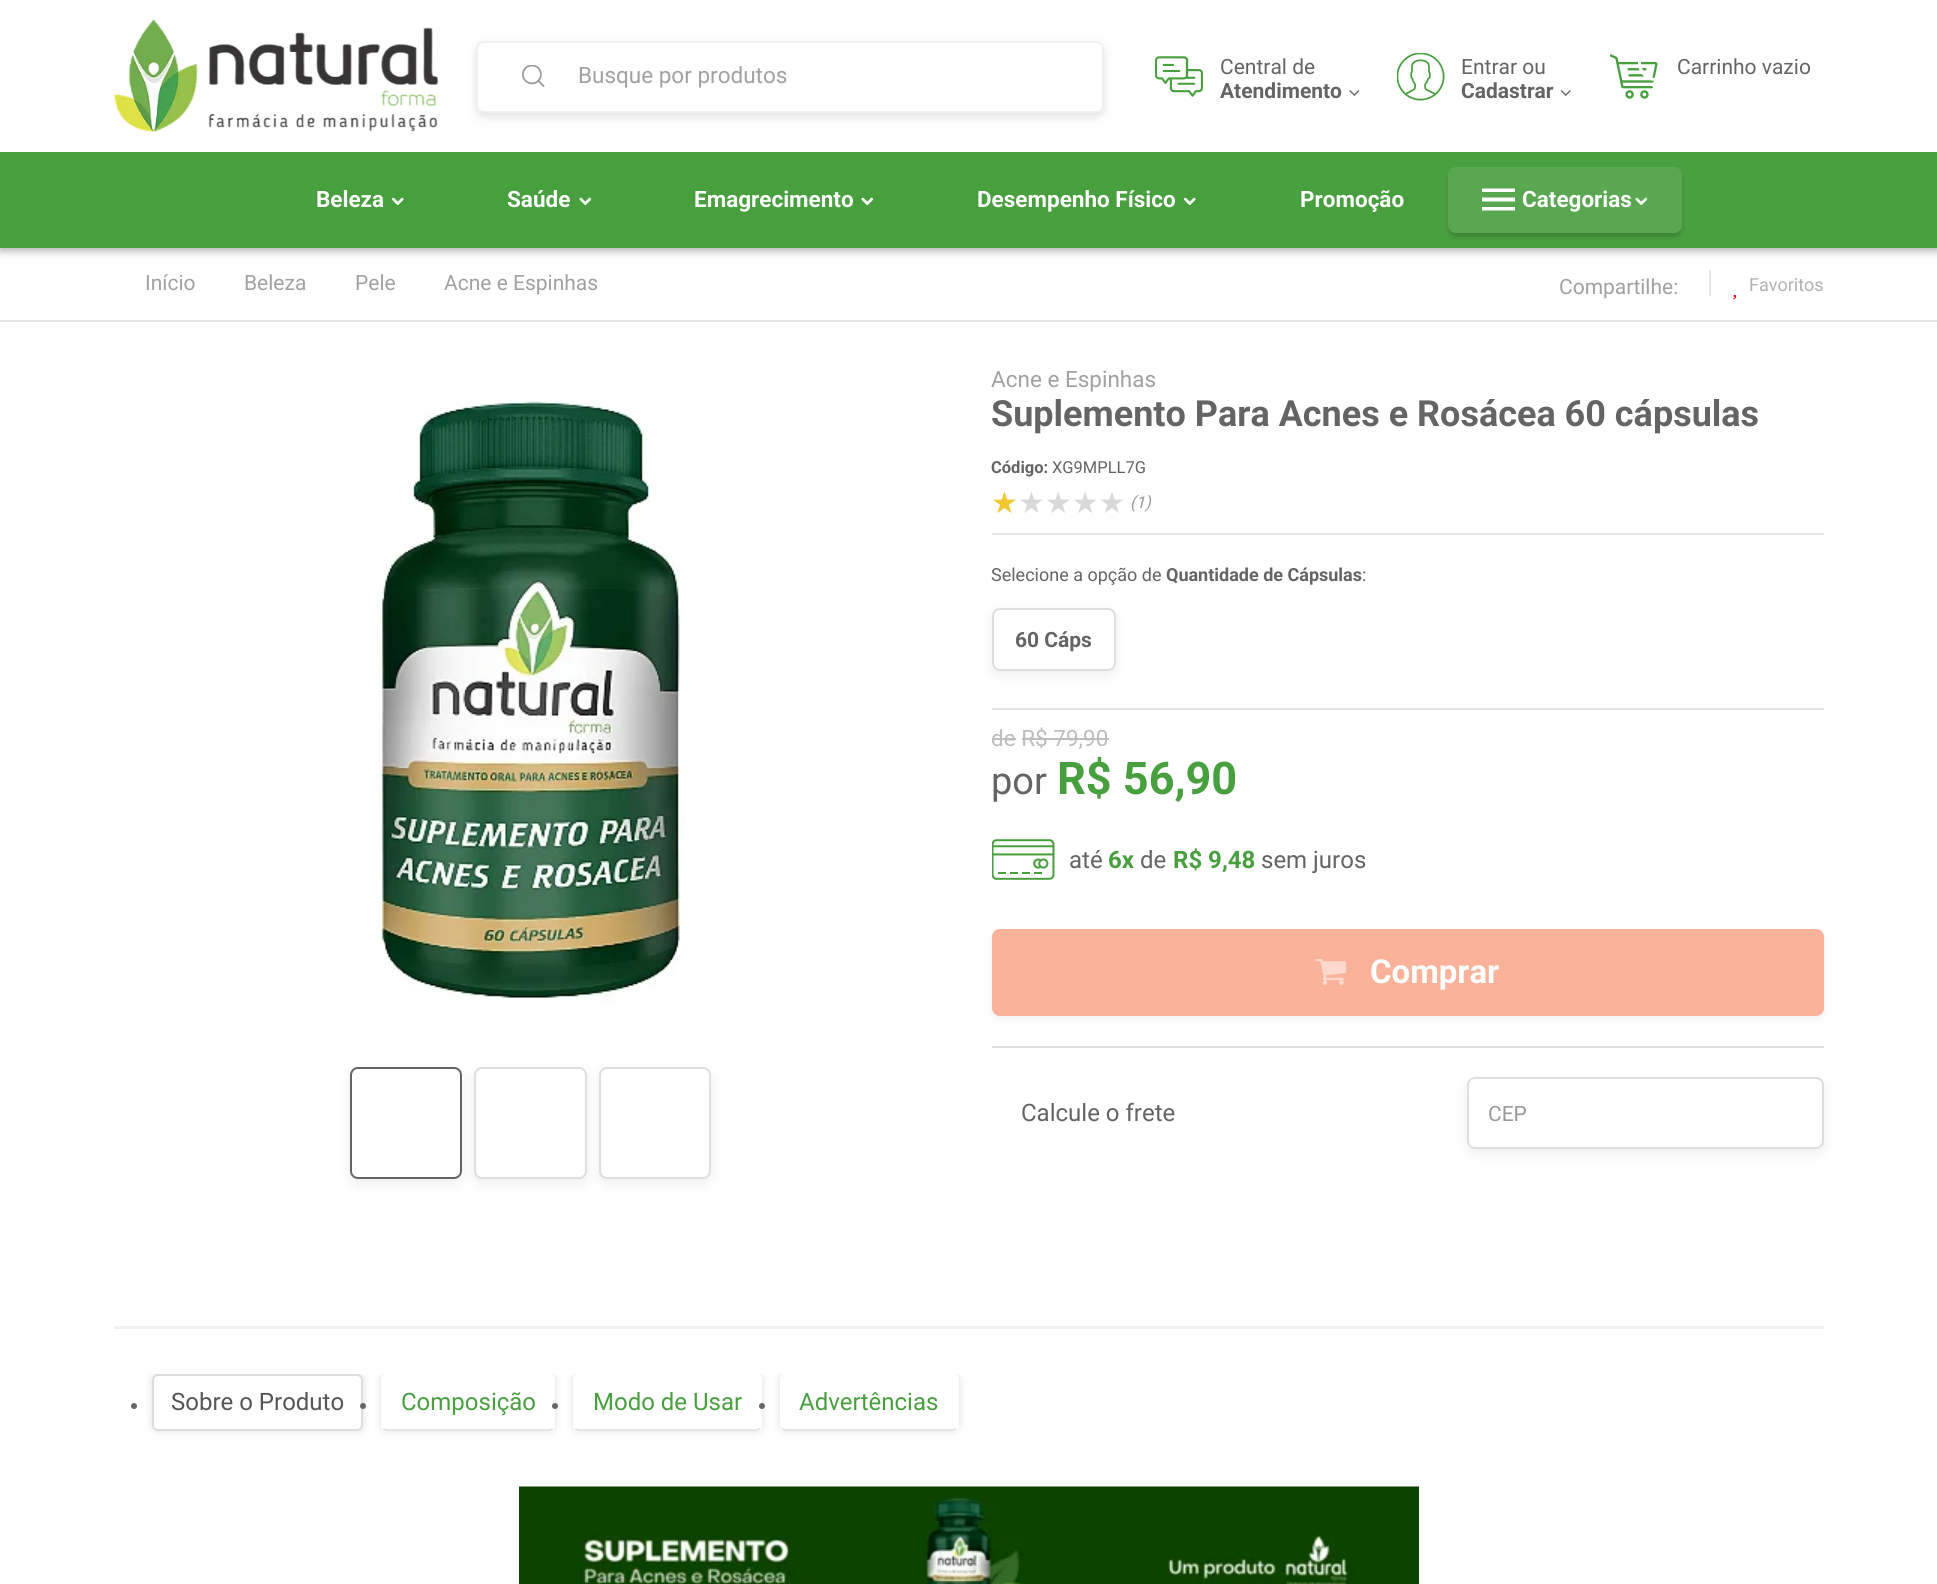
#include <cairo.h>
#include <math.h>
#include <stddef.h>

static cairo_t *ctx;

static void use_color(int r, int g, int b) {
    cairo_set_source_rgb(ctx, r / 255.0, g / 255.0, b / 255.0);
}

static void round_rect(double x, double y, double w, double h, double r) {
    cairo_new_sub_path(ctx);
    cairo_arc(ctx, x + w - r, y + h - r, r, 0, M_PI / 2);
    cairo_arc(ctx, x + r, y + h - r, r, M_PI / 2, M_PI);
    cairo_arc(ctx, x + r, y + r, r, M_PI, 1.5 * M_PI);
    cairo_arc(ctx, x + w - r, y + r, r, 1.5 * M_PI, 2 * M_PI);
    cairo_close_path(ctx);
}

static void shadow(double x, double y, double w, double h, double r, double blur, double alpha) {
    cairo_push_group_with_content(ctx, CAIRO_CONTENT_ALPHA);
    cairo_set_operator(ctx, CAIRO_OPERATOR_SOURCE);
    for (int i = 15; i >= -15 && fmin(w, h) + blur * i / 3 > 0; i -= 2) {
        double e = blur * i / 6;
        cairo_set_source_rgba(ctx, 0, 0, 0, alpha * erfc((i - 1) / 8.5) / 2);
        round_rect(x - e, y - e, w + 2 * e, h + 2 * e, fmax(0, fmin(r + e + blur * .6, fmin(w, h) / 2 + e)));
        cairo_fill(ctx);
    }
    cairo_pattern_t *soft = cairo_pop_group(ctx);
    cairo_mask(ctx, soft);
    cairo_pattern_destroy(soft);
}

static void picture(const char *path, double x, double y, double w, double h) {
    cairo_surface_t *image = cairo_image_surface_create_from_png(path);
    cairo_save(ctx);
    cairo_set_source_surface(ctx, image, x, y);
    cairo_rectangle(ctx, x, y, w, h);
    cairo_fill(ctx);
    cairo_restore(ctx);
    cairo_surface_destroy(image);
}

int main(void) {
    cairo_surface_t *surface = cairo_image_surface_create(CAIRO_FORMAT_RGB24, 1937, 1584);
    ctx = cairo_create(surface);
    cairo_font_options_t *options = cairo_font_options_create();
    cairo_font_options_set_hint_metrics(options, CAIRO_HINT_METRICS_OFF);
    cairo_font_options_set_hint_style(options, CAIRO_HINT_STYLE_NONE);
    cairo_set_font_options(ctx, options);
    cairo_set_miter_limit(ctx, 4);
    cairo_pattern_t *gradient;
    use_color(255, 255, 255);
    cairo_paint(ctx);
    use_color(43, 43, 43);
    shadow(0, 3, 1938, 248, 0, 4.5, 0.38);
    use_color(255, 255, 255);
    cairo_rectangle(ctx, 0, 0, 1937, 152);
    cairo_fill(ctx);
    picture("img1.png", 114, 19, 324, 113);
    use_color(100, 100, 100);
    shadow(476, 45, 628, 72, 8, 4.5, 0.19);
    use_color(255, 255, 255);
    round_rect(477, 42, 626, 70, 7);
    cairo_fill_preserve(ctx);
    use_color(239, 239, 239);
    cairo_stroke(ctx);
    picture("img2.png", 522, 65, 23, 22);
    cairo_select_font_face(ctx, "Roboto", CAIRO_FONT_SLANT_NORMAL, CAIRO_FONT_WEIGHT_NORMAL);
    cairo_set_font_size(ctx, 22.5);
    use_color(161, 161, 161);
    cairo_move_to(ctx, 578, 83);
    cairo_show_text(ctx, "Busque por produtos");
    picture("img3.png", 1155, 56, 48, 41);
    cairo_set_font_size(ctx, 21);
    use_color(100, 100, 100);
    cairo_move_to(ctx, 1220, 74);
    cairo_show_text(ctx, "Central de");
    cairo_select_font_face(ctx, "Roboto", CAIRO_FONT_SLANT_NORMAL, CAIRO_FONT_WEIGHT_BOLD);
    cairo_move_to(ctx, 1220, 98);
    cairo_show_text(ctx, "Atendimento");
    picture("img4.png", 1349, 90, 11, 6);
    picture("img5.png", 1397, 53, 48, 48);
    cairo_select_font_face(ctx, "Roboto", CAIRO_FONT_SLANT_NORMAL, CAIRO_FONT_WEIGHT_NORMAL);
    cairo_move_to(ctx, 1461, 74);
    cairo_show_text(ctx, "Entrar ou");
    cairo_select_font_face(ctx, "Roboto", CAIRO_FONT_SLANT_NORMAL, CAIRO_FONT_WEIGHT_BOLD);
    cairo_move_to(ctx, 1461, 98);
    cairo_show_text(ctx, "Cadastrar");
    picture("img6.png", 1560, 90, 11, 6);
    picture("img7.png", 1610, 54, 48, 45);
    cairo_arc(ctx, 1656, 63, 16.5, 0, 2 * M_PI);
    use_color(255, 255, 255);
    cairo_set_line_width(ctx, 3);
    cairo_stroke(ctx);
    cairo_select_font_face(ctx, "Roboto", CAIRO_FONT_SLANT_NORMAL, CAIRO_FONT_WEIGHT_NORMAL);
    use_color(100, 100, 100);
    cairo_move_to(ctx, 1677, 74);
    cairo_show_text(ctx, "Carrinho vazio");
    use_color(72, 159, 62);
    cairo_rectangle(ctx, 0, 152, 1937, 96);
    cairo_fill(ctx);
    cairo_select_font_face(ctx, "Roboto", CAIRO_FONT_SLANT_NORMAL, CAIRO_FONT_WEIGHT_BOLD);
    cairo_set_font_size(ctx, 22.5);
    use_color(255, 255, 255);
    cairo_move_to(ctx, 316, 207);
    cairo_show_text(ctx, "Beleza");
    picture("img8.png", 391, 197, 13, 9);
    cairo_move_to(ctx, 507, 207);
    cairo_show_text(ctx, "Saúde");
    picture("img9.png", 579, 197, 13, 9);
    cairo_move_to(ctx, 694, 207);
    cairo_show_text(ctx, "Emagrecimento");
    picture("img9.png", 861, 197, 13, 9);
    cairo_move_to(ctx, 977, 207);
    cairo_show_text(ctx, "Desempenho Físico");
    picture("img8.png", 1183, 197, 13, 9);
    cairo_move_to(ctx, 1300, 207);
    cairo_show_text(ctx, "Promoção");
    cairo_save(ctx);
    cairo_set_fill_rule(ctx, CAIRO_FILL_RULE_EVEN_ODD);
    cairo_new_path(ctx);
    cairo_move_to(ctx, 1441, 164);
    cairo_line_to(ctx, 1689, 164);
    cairo_line_to(ctx, 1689, 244);
    cairo_line_to(ctx, 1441, 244);
    cairo_close_path(ctx);
    cairo_move_to(ctx, 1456, 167);
    cairo_line_to(ctx, 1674, 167);
    cairo_curve_to(ctx, 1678.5, 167, 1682, 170.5, 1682, 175);
    cairo_line_to(ctx, 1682, 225);
    cairo_curve_to(ctx, 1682, 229.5, 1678.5, 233, 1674, 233);
    cairo_line_to(ctx, 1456, 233);
    cairo_curve_to(ctx, 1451.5, 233, 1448, 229.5, 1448, 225);
    cairo_line_to(ctx, 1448, 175);
    cairo_curve_to(ctx, 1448, 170.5, 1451.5, 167, 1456, 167);
    cairo_close_path(ctx);
    cairo_clip(ctx);
    use_color(20, 20, 20);
    shadow(1448, 171, 234, 66, 8, 2, 0.2);
    cairo_restore(ctx);
    cairo_set_source_rgba(ctx, 0.957, 0.957, 0.957, 0.1);
    round_rect(1448, 167, 234, 66, 8);
    cairo_fill(ctx);
    use_color(255, 255, 255);
    cairo_new_path(ctx);
    cairo_move_to(ctx, 1482, 210.5);
    cairo_line_to(ctx, 1515, 210.5);
    cairo_line_to(ctx, 1515, 207);
    cairo_line_to(ctx, 1482, 207);
    cairo_close_path(ctx);
    cairo_move_to(ctx, 1482, 201.5);
    cairo_line_to(ctx, 1515, 201.5);
    cairo_line_to(ctx, 1515, 197.5);
    cairo_line_to(ctx, 1482, 197.5);
    cairo_close_path(ctx);
    cairo_move_to(ctx, 1482, 188.5);
    cairo_line_to(ctx, 1482, 192);
    cairo_line_to(ctx, 1515, 192);
    cairo_line_to(ctx, 1515, 188.5);
    cairo_close_path(ctx);
    cairo_fill(ctx);
    cairo_move_to(ctx, 1522, 207);
    cairo_show_text(ctx, "Categorias");
    picture("img10.png", 1635, 197, 13, 9);
    use_color(230, 230, 230);
    cairo_rectangle(ctx, 0, 320, 1937, 2);
    cairo_fill(ctx);
    cairo_select_font_face(ctx, "Roboto", CAIRO_FONT_SLANT_NORMAL, CAIRO_FONT_WEIGHT_NORMAL);
    cairo_set_font_size(ctx, 21);
    use_color(161, 161, 161);
    cairo_move_to(ctx, 145, 290);
    cairo_show_text(ctx, "Início");
    cairo_move_to(ctx, 244, 290);
    cairo_show_text(ctx, "Beleza");
    cairo_move_to(ctx, 355, 290);
    cairo_show_text(ctx, "Pele");
    cairo_move_to(ctx, 444, 290);
    cairo_show_text(ctx, "Acne e Espinhas");
    cairo_move_to(ctx, 1559, 294);
    cairo_show_text(ctx, "Compartilhe:");
    use_color(230, 230, 230);
    cairo_rectangle(ctx, 1709, 270, 2, 26);
    cairo_fill(ctx);
    cairo_set_font_size(ctx, 18);
    use_color(177, 177, 177);
    cairo_move_to(ctx, 1749, 291);
    cairo_show_text(ctx, "Favoritos");
    picture("img11.png", 1733, 294, 4, 6);
    picture("img12.png", 377, 401, 308, 601);
    use_color(137, 137, 137);
    shadow(350, 1071, 112, 113, 8, 6, 0.14);
    use_color(255, 255, 255);
    round_rect(351, 1068, 110, 110, 7);
    cairo_fill_preserve(ctx);
    use_color(100, 100, 100);
    cairo_set_line_width(ctx, 2);
    cairo_stroke(ctx);
    use_color(137, 137, 137);
    shadow(474, 1071, 113, 113, 8, 6, 0.14);
    use_color(255, 255, 255);
    round_rect(475, 1068, 111, 110, 7);
    cairo_fill_preserve(ctx);
    use_color(222, 222, 222);
    cairo_stroke(ctx);
    use_color(137, 137, 137);
    shadow(599, 1071, 112, 113, 8, 6, 0.14);
    use_color(255, 255, 255);
    round_rect(600, 1068, 110, 110, 7);
    cairo_fill_preserve(ctx);
    use_color(222, 222, 222);
    cairo_stroke(ctx);
    cairo_set_font_size(ctx, 22.5);
    use_color(161, 161, 161);
    cairo_move_to(ctx, 991, 387);
    cairo_show_text(ctx, "Acne e Espinhas");
    cairo_select_font_face(ctx, "Roboto", CAIRO_FONT_SLANT_NORMAL, CAIRO_FONT_WEIGHT_BOLD);
    cairo_set_font_size(ctx, 36);
    use_color(100, 100, 100);
    cairo_move_to(ctx, 991, 426);
    cairo_show_text(ctx, "Suplemento Para Acnes e Rosácea 60 cápsulas");
    use_color(230, 230, 230);
    cairo_rectangle(ctx, 992, 533, 832, 2);
    cairo_fill(ctx);
    cairo_set_font_size(ctx, 16.5);
    use_color(100, 100, 100);
    cairo_move_to(ctx, 991, 473);
    cairo_show_text(ctx, "Código:");
    cairo_select_font_face(ctx, "Roboto", CAIRO_FONT_SLANT_NORMAL, CAIRO_FONT_WEIGHT_NORMAL);
    cairo_move_to(ctx, 1052, 473);
    cairo_show_text(ctx, "XG9MPLL7G");
    cairo_select_font_face(ctx, "DejaVu Sans", CAIRO_FONT_SLANT_NORMAL, CAIRO_FONT_WEIGHT_NORMAL);
    cairo_set_font_size(ctx, 30);
    gradient = cairo_pattern_create_linear(991, 503, 1125, 503);
    cairo_pattern_add_color_stop_rgba(gradient, 0.2, 0.949, 0.784, 0.196, 1);
    cairo_pattern_add_color_stop_rgba(gradient, 0.2, 0.851, 0.851, 0.851, 1);
    cairo_set_source(ctx, gradient);
    cairo_pattern_destroy(gradient);
    cairo_move_to(ctx, 991, 513);
    cairo_show_text(ctx, "★★★★★");
    cairo_select_font_face(ctx, "Roboto", CAIRO_FONT_SLANT_ITALIC, CAIRO_FONT_WEIGHT_NORMAL);
    cairo_set_font_size(ctx, 16.5);
    use_color(153, 153, 153);
    cairo_move_to(ctx, 1130, 508);
    cairo_show_text(ctx, "(1)");
    use_color(229, 229, 229);
    cairo_rectangle(ctx, 992, 708, 832, 2);
    cairo_fill(ctx);
    cairo_select_font_face(ctx, "Roboto", CAIRO_FONT_SLANT_NORMAL, CAIRO_FONT_WEIGHT_NORMAL);
    cairo_set_font_size(ctx, 18);
    use_color(100, 100, 100);
    cairo_move_to(ctx, 991, 581);
    cairo_show_text(ctx, "Selecione a opção de");
    cairo_select_font_face(ctx, "Roboto", CAIRO_FONT_SLANT_NORMAL, CAIRO_FONT_WEIGHT_BOLD);
    cairo_move_to(ctx, 1166, 581);
    cairo_show_text(ctx, "Quantidade de Cápsulas");
    cairo_select_font_face(ctx, "Roboto", CAIRO_FONT_SLANT_NORMAL, CAIRO_FONT_WEIGHT_NORMAL);
    cairo_move_to(ctx, 1362, 581);
    cairo_show_text(ctx, ":");
    cairo_save(ctx);
    cairo_set_fill_rule(ctx, CAIRO_FILL_RULE_EVEN_ODD);
    cairo_new_path(ctx);
    cairo_move_to(ctx, 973, 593);
    cairo_line_to(ctx, 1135, 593);
    cairo_line_to(ctx, 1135, 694);
    cairo_line_to(ctx, 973, 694);
    cairo_close_path(ctx);
    cairo_move_to(ctx, 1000, 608);
    cairo_line_to(ctx, 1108, 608);
    cairo_curve_to(ctx, 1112.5, 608, 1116, 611.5, 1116, 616);
    cairo_line_to(ctx, 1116, 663);
    cairo_curve_to(ctx, 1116, 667.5, 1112.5, 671, 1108, 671);
    cairo_line_to(ctx, 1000, 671);
    cairo_curve_to(ctx, 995.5, 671, 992, 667.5, 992, 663);
    cairo_line_to(ctx, 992, 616);
    cairo_curve_to(ctx, 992, 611.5, 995.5, 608, 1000, 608);
    cairo_close_path(ctx);
    cairo_clip(ctx);
    use_color(137, 137, 137);
    shadow(992, 612, 124, 63, 8, 6, 0.14);
    cairo_restore(ctx);
    round_rect(993, 609, 122, 61, 7);
    use_color(222, 222, 222);
    cairo_stroke(ctx);
    cairo_select_font_face(ctx, "Roboto", CAIRO_FONT_SLANT_NORMAL, CAIRO_FONT_WEIGHT_BOLD);
    cairo_set_font_size(ctx, 21);
    use_color(100, 100, 100);
    cairo_move_to(ctx, 1015, 647);
    cairo_show_text(ctx, "60 Cáps");
    cairo_select_font_face(ctx, "Roboto", CAIRO_FONT_SLANT_NORMAL, CAIRO_FONT_WEIGHT_NORMAL);
    cairo_set_font_size(ctx, 22.5);
    use_color(189, 189, 189);
    cairo_move_to(ctx, 991, 746);
    cairo_show_text(ctx, "de R$ 79,90");
    cairo_rectangle(ctx, 992, 738, 24, 2);
    cairo_fill(ctx);
    cairo_rectangle(ctx, 1022, 738, 87, 2);
    cairo_fill(ctx);
    cairo_set_font_size(ctx, 38);
    use_color(100, 100, 100);
    cairo_move_to(ctx, 991, 794);
    cairo_show_text(ctx, "por");
    cairo_select_font_face(ctx, "Roboto", CAIRO_FONT_SLANT_NORMAL, CAIRO_FONT_WEIGHT_BOLD);
    cairo_set_font_size(ctx, 45);
    use_color(72, 159, 62);
    cairo_move_to(ctx, 1057, 794);
    cairo_show_text(ctx, "R$ 56,90");
    picture("img13.png", 992, 839, 63, 41);
    cairo_select_font_face(ctx, "Roboto", CAIRO_FONT_SLANT_NORMAL, CAIRO_FONT_WEIGHT_NORMAL);
    cairo_set_font_size(ctx, 24);
    use_color(100, 100, 100);
    cairo_move_to(ctx, 1069, 868);
    cairo_show_text(ctx, "até");
    cairo_select_font_face(ctx, "Roboto", CAIRO_FONT_SLANT_NORMAL, CAIRO_FONT_WEIGHT_BOLD);
    use_color(72, 159, 62);
    cairo_move_to(ctx, 1108, 868);
    cairo_show_text(ctx, "6x");
    cairo_select_font_face(ctx, "Roboto", CAIRO_FONT_SLANT_NORMAL, CAIRO_FONT_WEIGHT_NORMAL);
    use_color(100, 100, 100);
    cairo_move_to(ctx, 1140, 868);
    cairo_show_text(ctx, "de");
    cairo_select_font_face(ctx, "Roboto", CAIRO_FONT_SLANT_NORMAL, CAIRO_FONT_WEIGHT_BOLD);
    use_color(72, 159, 62);
    cairo_move_to(ctx, 1173, 868);
    cairo_show_text(ctx, "R$ 9,48");
    cairo_select_font_face(ctx, "Roboto", CAIRO_FONT_SLANT_NORMAL, CAIRO_FONT_WEIGHT_NORMAL);
    use_color(100, 100, 100);
    cairo_move_to(ctx, 1261, 868);
    cairo_show_text(ctx, "sem juros");
    use_color(229, 229, 229);
    shadow(992, 932, 832, 87, 8, 3, 0.55);
    use_color(250, 178, 154);
    round_rect(992, 929, 832, 87, 8);
    cairo_fill(ctx);
    picture("img14.png", 1315, 959, 32, 26);
    cairo_select_font_face(ctx, "Roboto", CAIRO_FONT_SLANT_NORMAL, CAIRO_FONT_WEIGHT_BOLD);
    cairo_set_font_size(ctx, 33);
    use_color(255, 255, 255);
    cairo_move_to(ctx, 1370, 983);
    cairo_show_text(ctx, "Comprar");
    use_color(222, 222, 222);
    cairo_rectangle(ctx, 992, 1046, 832, 2);
    cairo_fill(ctx);
    cairo_select_font_face(ctx, "Roboto", CAIRO_FONT_SLANT_NORMAL, CAIRO_FONT_WEIGHT_NORMAL);
    cairo_set_font_size(ctx, 24);
    use_color(100, 100, 100);
    cairo_move_to(ctx, 1021, 1121);
    cairo_show_text(ctx, "Calcule o frete");
    use_color(137, 137, 137);
    shadow(1467, 1082, 357, 72, 8, 6, 0.14);
    use_color(255, 255, 255);
    round_rect(1468, 1078, 355, 70, 7);
    cairo_fill_preserve(ctx);
    use_color(222, 222, 222);
    cairo_stroke(ctx);
    cairo_set_font_size(ctx, 21);
    use_color(153, 153, 153);
    cairo_move_to(ctx, 1488, 1121);
    cairo_show_text(ctx, "CEP");
    use_color(239, 239, 239);
    cairo_rectangle(ctx, 114, 1326, 1710, 3);
    cairo_fill(ctx);
    use_color(102, 102, 102);
    cairo_arc(ctx, 134, 1406, 3, 0, 2 * M_PI);
    cairo_fill(ctx);
    cairo_save(ctx);
    cairo_rectangle(ctx, 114, 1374, 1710, 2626);
    cairo_clip(ctx);
    use_color(0, 0, 0);
    shadow(152, 1374, 211, 57, 6, 4, 0.13);
    cairo_restore(ctx);
    use_color(255, 255, 255);
    round_rect(153, 1375, 209, 55, 5);
    cairo_fill_preserve(ctx);
    use_color(221, 221, 221);
    cairo_stroke(ctx);
    cairo_set_font_size(ctx, 24);
    use_color(85, 85, 85);
    cairo_move_to(ctx, 171, 1410);
    cairo_show_text(ctx, "Sobre o Produto");
    use_color(102, 102, 102);
    cairo_new_path(ctx);
    cairo_arc(ctx, 363, 1406, 3, 0, 2 * M_PI);
    cairo_fill(ctx);
    cairo_save(ctx);
    cairo_rectangle(ctx, 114, 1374, 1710, 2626);
    cairo_clip(ctx);
    cairo_set_fill_rule(ctx, CAIRO_FILL_RULE_EVEN_ODD);
    cairo_new_path(ctx);
    cairo_move_to(ctx, 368, 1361);
    cairo_line_to(ctx, 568, 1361);
    cairo_line_to(ctx, 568, 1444);
    cairo_line_to(ctx, 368, 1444);
    cairo_close_path(ctx);
    cairo_move_to(ctx, 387, 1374);
    cairo_line_to(ctx, 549, 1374);
    cairo_curve_to(ctx, 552.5, 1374, 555, 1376.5, 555, 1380);
    cairo_line_to(ctx, 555, 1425);
    cairo_curve_to(ctx, 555, 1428.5, 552.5, 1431, 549, 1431);
    cairo_line_to(ctx, 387, 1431);
    cairo_curve_to(ctx, 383.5, 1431, 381, 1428.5, 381, 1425);
    cairo_line_to(ctx, 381, 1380);
    cairo_curve_to(ctx, 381, 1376.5, 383.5, 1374, 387, 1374);
    cairo_close_path(ctx);
    cairo_clip(ctx);
    use_color(0, 0, 0);
    shadow(381, 1374, 174, 57, 6, 4, 0.13);
    cairo_restore(ctx);
    cairo_new_path(ctx);
    cairo_move_to(ctx, 552.5, 1428.5);
    cairo_curve_to(ctx, 551.5, 1429.5, 550.5, 1430, 549, 1430);
    cairo_line_to(ctx, 387, 1430);
    cairo_curve_to(ctx, 385.5, 1430, 384.5, 1429.5, 383.5, 1428.5);
    use_color(221, 221, 221);
    cairo_set_line_width(ctx, 1.5);
    cairo_stroke(ctx);
    use_color(72, 159, 62);
    cairo_move_to(ctx, 401, 1410);
    cairo_show_text(ctx, "Composição");
    use_color(102, 102, 102);
    cairo_new_path(ctx);
    cairo_arc(ctx, 555, 1406, 3, 0, 2 * M_PI);
    cairo_fill(ctx);
    cairo_save(ctx);
    cairo_rectangle(ctx, 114, 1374, 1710, 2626);
    cairo_clip(ctx);
    cairo_set_fill_rule(ctx, CAIRO_FILL_RULE_EVEN_ODD);
    cairo_new_path(ctx);
    cairo_move_to(ctx, 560, 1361);
    cairo_line_to(ctx, 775, 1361);
    cairo_line_to(ctx, 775, 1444);
    cairo_line_to(ctx, 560, 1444);
    cairo_close_path(ctx);
    cairo_move_to(ctx, 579, 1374);
    cairo_line_to(ctx, 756, 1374);
    cairo_curve_to(ctx, 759.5, 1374, 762, 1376.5, 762, 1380);
    cairo_line_to(ctx, 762, 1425);
    cairo_curve_to(ctx, 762, 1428.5, 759.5, 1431, 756, 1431);
    cairo_line_to(ctx, 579, 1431);
    cairo_curve_to(ctx, 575.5, 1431, 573, 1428.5, 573, 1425);
    cairo_line_to(ctx, 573, 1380);
    cairo_curve_to(ctx, 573, 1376.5, 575.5, 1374, 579, 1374);
    cairo_close_path(ctx);
    cairo_clip(ctx);
    use_color(0, 0, 0);
    shadow(573, 1374, 189, 57, 6, 4, 0.13);
    cairo_restore(ctx);
    cairo_new_path(ctx);
    cairo_move_to(ctx, 759.5, 1428.5);
    cairo_curve_to(ctx, 758.5, 1429.5, 757.5, 1430, 756, 1430);
    cairo_line_to(ctx, 579, 1430);
    cairo_curve_to(ctx, 577.5, 1430, 576.5, 1429.5, 575.5, 1428.5);
    use_color(221, 221, 221);
    cairo_stroke(ctx);
    use_color(72, 159, 62);
    cairo_move_to(ctx, 593, 1410);
    cairo_show_text(ctx, "Modo de Usar");
    use_color(102, 102, 102);
    cairo_new_path(ctx);
    cairo_arc(ctx, 762, 1406, 3, 0, 2 * M_PI);
    cairo_fill(ctx);
    cairo_save(ctx);
    cairo_rectangle(ctx, 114, 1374, 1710, 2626);
    cairo_clip(ctx);
    cairo_set_fill_rule(ctx, CAIRO_FILL_RULE_EVEN_ODD);
    cairo_new_path(ctx);
    cairo_move_to(ctx, 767, 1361);
    cairo_line_to(ctx, 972, 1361);
    cairo_line_to(ctx, 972, 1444);
    cairo_line_to(ctx, 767, 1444);
    cairo_close_path(ctx);
    cairo_move_to(ctx, 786, 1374);
    cairo_line_to(ctx, 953, 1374);
    cairo_curve_to(ctx, 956.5, 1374, 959, 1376.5, 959, 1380);
    cairo_line_to(ctx, 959, 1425);
    cairo_curve_to(ctx, 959, 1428.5, 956.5, 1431, 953, 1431);
    cairo_line_to(ctx, 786, 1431);
    cairo_curve_to(ctx, 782.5, 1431, 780, 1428.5, 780, 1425);
    cairo_line_to(ctx, 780, 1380);
    cairo_curve_to(ctx, 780, 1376.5, 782.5, 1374, 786, 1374);
    cairo_close_path(ctx);
    cairo_clip(ctx);
    use_color(0, 0, 0);
    shadow(780, 1374, 179, 57, 6, 4, 0.13);
    cairo_restore(ctx);
    cairo_new_path(ctx);
    cairo_move_to(ctx, 956, 1428.5);
    cairo_curve_to(ctx, 955, 1429.5, 954, 1430, 952.5, 1430);
    cairo_line_to(ctx, 786, 1430);
    cairo_curve_to(ctx, 784.5, 1430, 783.5, 1429.5, 782.5, 1428.5);
    use_color(221, 221, 221);
    cairo_stroke(ctx);
    use_color(72, 159, 62);
    cairo_move_to(ctx, 799, 1410);
    cairo_show_text(ctx, "Advertências");
    picture("img15.png", 519, 1486, 900, 98);
    cairo_surface_write_to_png(surface, "result.png");
    cairo_font_options_destroy(options);
    cairo_destroy(ctx);
    cairo_surface_destroy(surface);
    return 0;
}
